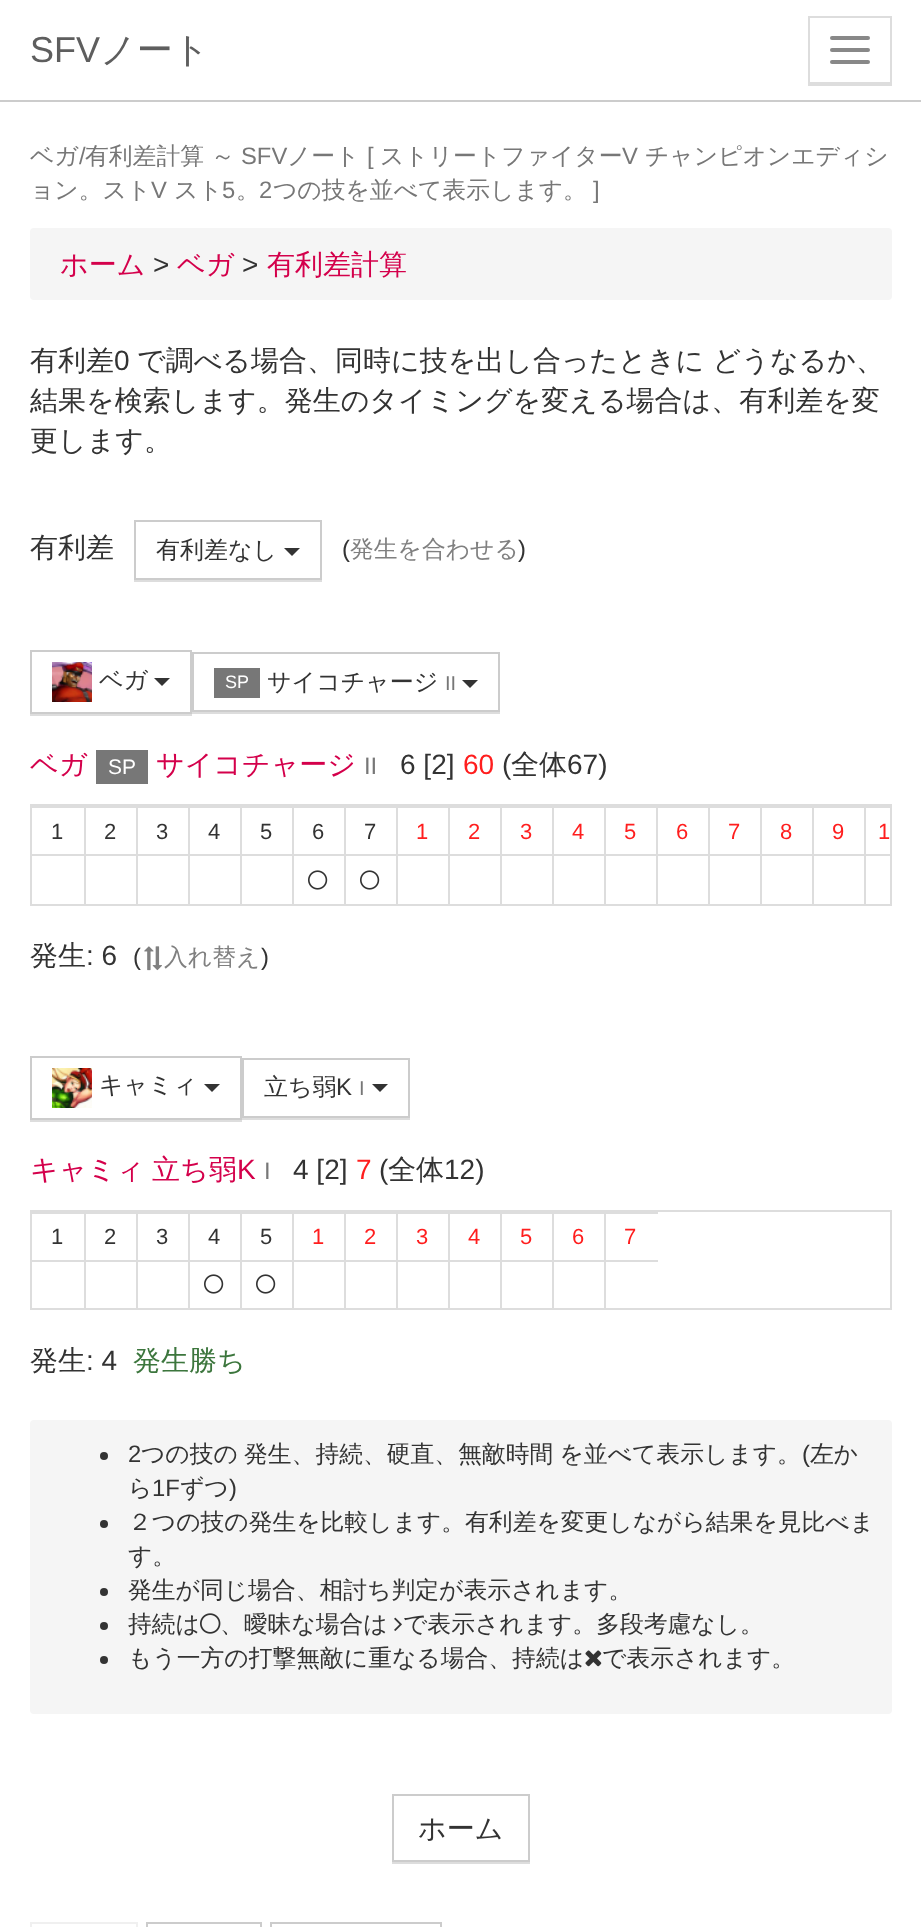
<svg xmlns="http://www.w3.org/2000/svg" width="921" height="1927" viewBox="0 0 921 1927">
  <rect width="100%" height="100%" fill="rgb(255,255,255)"/>
  <rect x="0" y="100" width="921" height="2" fill="rgb(204,204,204)"/>
  <text x="30" y="62" font-family="Liberation Sans" font-size="36" fill="rgb(94,94,94)">SFV</text>
  <text x="100" y="62" font-family="WenQuanYi Zen Hei" font-size="36" font-weight="500" fill="rgb(94,94,94)">ノート</text>
  <rect x="808" y="84" width="84" height="2" fill="rgb(221,221,221)"/>
  <rect x="809" y="17" width="82" height="66" fill="none" stroke="rgb(221,221,221)" stroke-width="2"/>
  <rect x="830" y="36" width="40" height="4" rx="2" fill="rgb(136,136,136)"/>
  <rect x="830" y="48" width="40" height="4" rx="2" fill="rgb(136,136,136)"/>
  <rect x="830" y="60" width="40" height="4" rx="2" fill="rgb(136,136,136)"/>
  <text x="30" y="164" font-family="WenQuanYi Zen Hei" font-size="23.8" font-weight="500" fill="rgb(119,119,119)">ベガ</text>
  <text x="79" y="164" font-family="Liberation Sans" font-size="23.8" fill="rgb(119,119,119)">/</text>
  <g font-family="WenQuanYi Zen Hei" font-size="23.8" font-weight="500" fill="rgb(119,119,119)">
    <text x="85" y="164">有利差計算</text>
    <text x="211" y="164">～</text>
  </g>
  <text x="241" y="164" font-family="Liberation Sans" font-size="23.8" fill="rgb(119,119,119)">SFV</text>
  <text x="287" y="164" font-family="WenQuanYi Zen Hei" font-size="23.8" font-weight="500" fill="rgb(119,119,119)">ノート</text>
  <text x="367" y="164" font-family="Liberation Sans" font-size="23.8" fill="rgb(119,119,119)">[</text>
  <text x="380" y="164" font-family="WenQuanYi Zen Hei" font-size="23.8" font-weight="500" fill="rgb(119,119,119)">ストリートファイター</text>
  <text x="622" y="164" font-family="Liberation Sans" font-size="23.8" fill="rgb(119,119,119)">V</text>
  <g font-family="WenQuanYi Zen Hei" font-size="23.8" font-weight="500" fill="rgb(119,119,119)">
    <text x="645" y="164">チャンピオンエディシ</text>
    <text x="30" y="198">ョン。スト</text>
  </g>
  <text x="151" y="198" font-family="Liberation Sans" font-size="23.8" fill="rgb(119,119,119)">V</text>
  <text x="174" y="198" font-family="WenQuanYi Zen Hei" font-size="23.8" font-weight="500" fill="rgb(119,119,119)">スト</text>
  <text x="222" y="198" font-family="Liberation Sans" font-size="23.8" fill="rgb(119,119,119)">5</text>
  <text x="236" y="198" font-family="WenQuanYi Zen Hei" font-size="23.8" font-weight="500" fill="rgb(119,119,119)">。</text>
  <text x="259" y="198" font-family="Liberation Sans" font-size="23.8" fill="rgb(119,119,119)">2</text>
  <text x="273" y="198" font-family="WenQuanYi Zen Hei" font-size="23.8" font-weight="500" fill="rgb(119,119,119)">つの技を並べて表示します。</text>
  <text x="593" y="198" font-family="Liberation Sans" font-size="23.8" fill="rgb(119,119,119)">]</text>
  <rect x="30" y="228" width="862" height="72" rx="4" fill="rgb(245,245,245)"/>
  <text x="60" y="274" font-family="WenQuanYi Zen Hei" font-size="28" font-weight="500" fill="rgb(212,0,75)">ホーム</text>
  <text x="153" y="274" font-family="Liberation Sans" font-size="28" fill="rgb(51,51,51)">&gt;</text>
  <text x="177" y="274" font-family="WenQuanYi Zen Hei" font-size="28" font-weight="500" fill="rgb(212,0,75)">ベガ</text>
  <text x="242" y="274" font-family="Liberation Sans" font-size="28" fill="rgb(51,51,51)">&gt;</text>
  <text x="267" y="274" font-family="WenQuanYi Zen Hei" font-size="28" font-weight="500" fill="rgb(212,0,75)">有利差計算</text>
  <text x="30" y="370" font-family="WenQuanYi Zen Hei" font-size="28" font-weight="500" fill="rgb(51,51,51)">有利差</text>
  <text x="114" y="370" font-family="Liberation Sans" font-size="28" fill="rgb(51,51,51)">0</text>
  <g font-family="WenQuanYi Zen Hei" font-size="28" font-weight="500" fill="rgb(51,51,51)">
    <text x="137" y="370">で調べる場合、同時に技を出し合ったときに どうなるか、</text>
    <text>
      <tspan x="30" y="410">結果を検索します。発生のタイミングを変える場合は、有利差を変</tspan>
      <tspan x="30" y="450">更します。</tspan>
    </text>
    <text x="30" y="557">有利差</text>
  </g>
  <rect x="134" y="580" width="188" height="2" fill="rgb(221,221,221)"/>
  <rect x="135" y="521" width="186" height="58" fill="none" stroke="rgb(204,204,204)" stroke-width="2"/>
  <text x="156" y="558" font-family="WenQuanYi Zen Hei" font-size="24" font-weight="500" fill="rgb(51,51,51)">有利差なし</text>
  <path d="M284 548H300L292 556Z" fill="rgb(51,51,51)"/>
  <text x="342" y="557" font-family="Liberation Sans" font-size="23.8" fill="rgb(51,51,51)">(</text>
  <text x="350" y="557" font-family="WenQuanYi Zen Hei" font-size="23.8" font-weight="500" fill="rgb(128,128,128)">発生を合わせる</text>
  <text x="518" y="557" font-family="Liberation Sans" font-size="23.8" fill="rgb(51,51,51)">)</text>
  <rect x="30" y="714" width="162" height="2" fill="rgb(221,221,221)"/>
  <rect x="31" y="651" width="160" height="62" fill="none" stroke="rgb(204,204,204)" stroke-width="2"/>
  <image x="52" y="662" width="40" height="40" href="pic1.png"/>
  <text x="99" y="688" font-family="WenQuanYi Zen Hei" font-size="24" font-weight="500" fill="rgb(51,51,51)">ベガ</text>
  <path d="M154 678H170L162 686Z" fill="rgb(51,51,51)"/>
  <rect x="192" y="712" width="308" height="2" fill="rgb(221,221,221)"/>
  <rect x="193" y="653" width="306" height="58" fill="none" stroke="rgb(204,204,204)" stroke-width="2"/>
  <rect x="214" y="668" width="46" height="30" fill="rgb(119,119,119)"/>
  <text x="225" y="688" font-family="Liberation Sans" font-size="18" fill="rgb(255,255,255)">SP</text>
  <text x="267" y="690" font-family="WenQuanYi Zen Hei" font-size="24" font-weight="500" fill="rgb(51,51,51)">サイコチャージ</text>
  <text x="445" y="690" font-family="Liberation Sans" font-size="20" fill="rgb(119,119,119)">II</text>
  <path d="M462 680H478L470 688Z" fill="rgb(51,51,51)"/>
  <text x="30" y="774" font-family="WenQuanYi Zen Hei" font-size="28" font-weight="500" fill="rgb(212,0,75)">ベガ</text>
  <rect x="96" y="750" width="52" height="34" fill="rgb(119,119,119)"/>
  <text x="108" y="774" font-family="Liberation Sans" font-size="21" fill="rgb(255,255,255)">SP</text>
  <text x="156" y="774" font-family="WenQuanYi Zen Hei" font-size="28" font-weight="500" fill="rgb(212,0,75)">サイコチャージ</text>
  <text x="364" y="774" font-family="Liberation Sans" font-size="23.8" fill="rgb(119,119,119)">II</text>
  <text x="400" y="774" font-family="Liberation Sans" font-size="28" fill="rgb(51,51,51)">6 [2]</text>
  <text x="463" y="774" font-family="Liberation Sans" font-size="28" fill="rgb(255,30,30)">60</text>
  <text x="502" y="774" font-family="Liberation Sans" font-size="28" fill="rgb(51,51,51)">(</text>
  <text x="511" y="774" font-family="WenQuanYi Zen Hei" font-size="28" font-weight="500" fill="rgb(51,51,51)">全体</text>
  <text x="567" y="774" font-family="Liberation Sans" font-size="28" fill="rgb(51,51,51)">67)</text>
  <rect x="31" y="805" width="860" height="100" fill="none" stroke="rgb(221,221,221)" stroke-width="2"/>
  <rect x="864" y="806" width="26" height="2" fill="rgb(221,221,221)"/>
  <rect x="864" y="854" width="26" height="2" fill="rgb(221,221,221)"/>
  <rect x="864" y="854" width="2" height="50" fill="rgb(221,221,221)"/>
  <rect x="812" y="854" width="54" height="2" fill="rgb(221,221,221)"/>
  <rect x="864" y="806" width="2" height="50" fill="rgb(221,221,221)"/>
  <rect x="812" y="806" width="54" height="2" fill="rgb(221,221,221)"/>
  <rect x="812" y="854" width="2" height="50" fill="rgb(221,221,221)"/>
  <rect x="760" y="854" width="54" height="2" fill="rgb(221,221,221)"/>
  <rect x="812" y="806" width="2" height="50" fill="rgb(221,221,221)"/>
  <rect x="760" y="806" width="54" height="2" fill="rgb(221,221,221)"/>
  <rect x="760" y="854" width="2" height="50" fill="rgb(221,221,221)"/>
  <rect x="708" y="854" width="54" height="2" fill="rgb(221,221,221)"/>
  <rect x="760" y="806" width="2" height="50" fill="rgb(221,221,221)"/>
  <rect x="708" y="806" width="54" height="2" fill="rgb(221,221,221)"/>
  <rect x="708" y="854" width="2" height="50" fill="rgb(221,221,221)"/>
  <rect x="656" y="854" width="54" height="2" fill="rgb(221,221,221)"/>
  <rect x="708" y="806" width="2" height="50" fill="rgb(221,221,221)"/>
  <rect x="656" y="806" width="54" height="2" fill="rgb(221,221,221)"/>
  <rect x="656" y="854" width="2" height="50" fill="rgb(221,221,221)"/>
  <rect x="604" y="854" width="54" height="2" fill="rgb(221,221,221)"/>
  <rect x="656" y="806" width="2" height="50" fill="rgb(221,221,221)"/>
  <rect x="604" y="806" width="54" height="2" fill="rgb(221,221,221)"/>
  <rect x="604" y="854" width="2" height="50" fill="rgb(221,221,221)"/>
  <rect x="552" y="854" width="54" height="2" fill="rgb(221,221,221)"/>
  <rect x="604" y="806" width="2" height="50" fill="rgb(221,221,221)"/>
  <rect x="552" y="806" width="54" height="2" fill="rgb(221,221,221)"/>
  <rect x="552" y="854" width="2" height="50" fill="rgb(221,221,221)"/>
  <rect x="500" y="854" width="54" height="2" fill="rgb(221,221,221)"/>
  <rect x="552" y="806" width="2" height="50" fill="rgb(221,221,221)"/>
  <rect x="500" y="806" width="54" height="2" fill="rgb(221,221,221)"/>
  <rect x="500" y="854" width="2" height="50" fill="rgb(221,221,221)"/>
  <rect x="448" y="854" width="54" height="2" fill="rgb(221,221,221)"/>
  <rect x="500" y="806" width="2" height="50" fill="rgb(221,221,221)"/>
  <rect x="448" y="806" width="54" height="2" fill="rgb(221,221,221)"/>
  <rect x="448" y="854" width="2" height="50" fill="rgb(221,221,221)"/>
  <rect x="396" y="854" width="54" height="2" fill="rgb(221,221,221)"/>
  <rect x="448" y="806" width="2" height="50" fill="rgb(221,221,221)"/>
  <rect x="396" y="806" width="54" height="2" fill="rgb(221,221,221)"/>
  <rect x="396" y="854" width="2" height="50" fill="rgb(221,221,221)"/>
  <rect x="344" y="854" width="54" height="2" fill="rgb(221,221,221)"/>
  <rect x="396" y="806" width="2" height="50" fill="rgb(221,221,221)"/>
  <rect x="344" y="806" width="54" height="2" fill="rgb(221,221,221)"/>
  <rect x="344" y="854" width="2" height="50" fill="rgb(221,221,221)"/>
  <rect x="292" y="854" width="54" height="2" fill="rgb(221,221,221)"/>
  <rect x="344" y="806" width="2" height="50" fill="rgb(221,221,221)"/>
  <rect x="292" y="806" width="54" height="2" fill="rgb(221,221,221)"/>
  <rect x="292" y="854" width="2" height="50" fill="rgb(221,221,221)"/>
  <rect x="240" y="854" width="54" height="2" fill="rgb(221,221,221)"/>
  <rect x="292" y="806" width="2" height="50" fill="rgb(221,221,221)"/>
  <rect x="240" y="806" width="54" height="2" fill="rgb(221,221,221)"/>
  <rect x="240" y="854" width="2" height="50" fill="rgb(221,221,221)"/>
  <rect x="188" y="854" width="54" height="2" fill="rgb(221,221,221)"/>
  <rect x="240" y="806" width="2" height="50" fill="rgb(221,221,221)"/>
  <rect x="188" y="806" width="54" height="2" fill="rgb(221,221,221)"/>
  <rect x="188" y="854" width="2" height="50" fill="rgb(221,221,221)"/>
  <rect x="136" y="854" width="54" height="2" fill="rgb(221,221,221)"/>
  <rect x="188" y="806" width="2" height="50" fill="rgb(221,221,221)"/>
  <rect x="136" y="806" width="54" height="2" fill="rgb(221,221,221)"/>
  <rect x="136" y="854" width="2" height="50" fill="rgb(221,221,221)"/>
  <rect x="84" y="854" width="54" height="2" fill="rgb(221,221,221)"/>
  <rect x="136" y="806" width="2" height="50" fill="rgb(221,221,221)"/>
  <rect x="84" y="806" width="54" height="2" fill="rgb(221,221,221)"/>
  <rect x="84" y="854" width="2" height="50" fill="rgb(221,221,221)"/>
  <rect x="32" y="854" width="54" height="2" fill="rgb(221,221,221)"/>
  <rect x="84" y="806" width="2" height="50" fill="rgb(221,221,221)"/>
  <rect x="32" y="806" width="54" height="2" fill="rgb(221,221,221)"/>
  <g font-family="Liberation Sans" font-size="22" fill="rgb(51,51,51)">
    <text x="51" y="839">1</text>
    <text x="104" y="839">2</text>
    <text x="156" y="839">3</text>
    <text x="208" y="839">4</text>
    <text x="260" y="839">5</text>
    <text x="312" y="839">6</text>
    <text x="364" y="839">7</text>
  </g>
  <g font-family="Liberation Sans" font-size="22" fill="rgb(255,30,30)">
    <text x="416" y="839">1</text>
    <text x="468" y="839">2</text>
    <text x="520" y="839">3</text>
    <text x="572" y="839">4</text>
    <text x="624" y="839">5</text>
    <text x="676" y="839">6</text>
    <text x="728" y="839">7</text>
    <text x="780" y="839">8</text>
    <text x="832" y="839">9</text>
    <text x="878" y="839">1</text>
  </g>
  <image x="308" y="870" width="20" height="20" href="pic2.png"/>
  <image x="360" y="870" width="20" height="20" href="pic2.png"/>
  <text x="30" y="965" font-family="WenQuanYi Zen Hei" font-size="28" font-weight="500" fill="rgb(51,51,51)">発生</text>
  <text x="86" y="965" font-family="Liberation Sans" font-size="28" fill="rgb(51,51,51)">: 6</text>
  <text x="133" y="965" font-family="Liberation Sans" font-size="23.8" fill="rgb(51,51,51)">(</text>
  <image x="144" y="946" width="18" height="25" href="pic3.png"/>
  <text x="164" y="965" font-family="WenQuanYi Zen Hei" font-size="23.8" font-weight="500" fill="rgb(128,128,128)">入れ替え</text>
  <text x="261" y="965" font-family="Liberation Sans" font-size="23.8" fill="rgb(51,51,51)">)</text>
  <rect x="30" y="1120" width="212" height="2" fill="rgb(221,221,221)"/>
  <rect x="31" y="1057" width="210" height="62" fill="none" stroke="rgb(204,204,204)" stroke-width="2"/>
  <image x="52" y="1068" width="40" height="40" href="pic4.png"/>
  <text x="99" y="1093" font-family="WenQuanYi Zen Hei" font-size="24" font-weight="500" fill="rgb(51,51,51)">キャミィ</text>
  <path d="M204 1084H220L212 1092Z" fill="rgb(51,51,51)"/>
  <rect x="242" y="1118" width="168" height="2" fill="rgb(221,221,221)"/>
  <rect x="243" y="1059" width="166" height="58" fill="none" stroke="rgb(204,204,204)" stroke-width="2"/>
  <text x="264" y="1095" font-family="WenQuanYi Zen Hei" font-size="24" font-weight="500" fill="rgb(51,51,51)">立ち弱</text>
  <text x="336" y="1095" font-family="Liberation Sans" font-size="24" fill="rgb(51,51,51)">K</text>
  <text x="359" y="1095" font-family="Liberation Sans" font-size="20" fill="rgb(119,119,119)">I</text>
  <path d="M372 1084H388L380 1092Z" fill="rgb(51,51,51)"/>
  <g font-family="WenQuanYi Zen Hei" font-size="28" font-weight="500" fill="rgb(212,0,75)">
    <text x="30" y="1179">キャミィ</text>
    <text x="152" y="1179">立ち弱</text>
  </g>
  <text x="237" y="1179" font-family="Liberation Sans" font-size="28" fill="rgb(212,0,75)">K</text>
  <text x="264" y="1179" font-family="Liberation Sans" font-size="23.8" fill="rgb(119,119,119)">I</text>
  <text x="293" y="1179" font-family="Liberation Sans" font-size="28" fill="rgb(51,51,51)">4 [2]</text>
  <text x="356" y="1179" font-family="Liberation Sans" font-size="28" fill="rgb(255,30,30)">7</text>
  <text x="379" y="1179" font-family="Liberation Sans" font-size="28" fill="rgb(51,51,51)">(</text>
  <text x="388" y="1179" font-family="WenQuanYi Zen Hei" font-size="28" font-weight="500" fill="rgb(51,51,51)">全体</text>
  <text x="444" y="1179" font-family="Liberation Sans" font-size="28" fill="rgb(51,51,51)">12)</text>
  <rect x="31" y="1211" width="860" height="98" fill="none" stroke="rgb(221,221,221)" stroke-width="2"/>
  <rect x="604" y="1212" width="54" height="2" fill="rgb(221,221,221)"/>
  <rect x="604" y="1260" width="54" height="2" fill="rgb(221,221,221)"/>
  <rect x="604" y="1260" width="2" height="48" fill="rgb(221,221,221)"/>
  <rect x="552" y="1260" width="54" height="2" fill="rgb(221,221,221)"/>
  <rect x="604" y="1212" width="2" height="50" fill="rgb(221,221,221)"/>
  <rect x="552" y="1212" width="54" height="2" fill="rgb(221,221,221)"/>
  <rect x="552" y="1260" width="2" height="48" fill="rgb(221,221,221)"/>
  <rect x="500" y="1260" width="54" height="2" fill="rgb(221,221,221)"/>
  <rect x="552" y="1212" width="2" height="50" fill="rgb(221,221,221)"/>
  <rect x="500" y="1212" width="54" height="2" fill="rgb(221,221,221)"/>
  <rect x="500" y="1260" width="2" height="48" fill="rgb(221,221,221)"/>
  <rect x="448" y="1260" width="54" height="2" fill="rgb(221,221,221)"/>
  <rect x="500" y="1212" width="2" height="50" fill="rgb(221,221,221)"/>
  <rect x="448" y="1212" width="54" height="2" fill="rgb(221,221,221)"/>
  <rect x="448" y="1260" width="2" height="48" fill="rgb(221,221,221)"/>
  <rect x="396" y="1260" width="54" height="2" fill="rgb(221,221,221)"/>
  <rect x="448" y="1212" width="2" height="50" fill="rgb(221,221,221)"/>
  <rect x="396" y="1212" width="54" height="2" fill="rgb(221,221,221)"/>
  <rect x="396" y="1260" width="2" height="48" fill="rgb(221,221,221)"/>
  <rect x="344" y="1260" width="54" height="2" fill="rgb(221,221,221)"/>
  <rect x="396" y="1212" width="2" height="50" fill="rgb(221,221,221)"/>
  <rect x="344" y="1212" width="54" height="2" fill="rgb(221,221,221)"/>
  <rect x="344" y="1260" width="2" height="48" fill="rgb(221,221,221)"/>
  <rect x="292" y="1260" width="54" height="2" fill="rgb(221,221,221)"/>
  <rect x="344" y="1212" width="2" height="50" fill="rgb(221,221,221)"/>
  <rect x="292" y="1212" width="54" height="2" fill="rgb(221,221,221)"/>
  <rect x="292" y="1260" width="2" height="48" fill="rgb(221,221,221)"/>
  <rect x="240" y="1260" width="54" height="2" fill="rgb(221,221,221)"/>
  <rect x="292" y="1212" width="2" height="50" fill="rgb(221,221,221)"/>
  <rect x="240" y="1212" width="54" height="2" fill="rgb(221,221,221)"/>
  <rect x="240" y="1260" width="2" height="48" fill="rgb(221,221,221)"/>
  <rect x="188" y="1260" width="54" height="2" fill="rgb(221,221,221)"/>
  <rect x="240" y="1212" width="2" height="50" fill="rgb(221,221,221)"/>
  <rect x="188" y="1212" width="54" height="2" fill="rgb(221,221,221)"/>
  <rect x="188" y="1260" width="2" height="48" fill="rgb(221,221,221)"/>
  <rect x="136" y="1260" width="54" height="2" fill="rgb(221,221,221)"/>
  <rect x="188" y="1212" width="2" height="50" fill="rgb(221,221,221)"/>
  <rect x="136" y="1212" width="54" height="2" fill="rgb(221,221,221)"/>
  <rect x="136" y="1260" width="2" height="48" fill="rgb(221,221,221)"/>
  <rect x="84" y="1260" width="54" height="2" fill="rgb(221,221,221)"/>
  <rect x="136" y="1212" width="2" height="50" fill="rgb(221,221,221)"/>
  <rect x="84" y="1212" width="54" height="2" fill="rgb(221,221,221)"/>
  <rect x="84" y="1260" width="2" height="48" fill="rgb(221,221,221)"/>
  <rect x="32" y="1260" width="54" height="2" fill="rgb(221,221,221)"/>
  <rect x="84" y="1212" width="2" height="50" fill="rgb(221,221,221)"/>
  <rect x="32" y="1212" width="54" height="2" fill="rgb(221,221,221)"/>
  <g font-family="Liberation Sans" font-size="22" fill="rgb(51,51,51)">
    <text x="51" y="1244">1</text>
    <text x="104" y="1244">2</text>
    <text x="156" y="1244">3</text>
    <text x="208" y="1244">4</text>
    <text x="260" y="1244">5</text>
  </g>
  <g font-family="Liberation Sans" font-size="22" fill="rgb(255,30,30)">
    <text x="312" y="1244">1</text>
    <text x="364" y="1244">2</text>
    <text x="416" y="1244">3</text>
    <text x="468" y="1244">4</text>
    <text x="520" y="1244">5</text>
    <text x="572" y="1244">6</text>
    <text x="624" y="1244">7</text>
  </g>
  <image x="204" y="1274" width="20" height="20" href="pic2.png"/>
  <image x="256" y="1274" width="20" height="20" href="pic2.png"/>
  <text x="30" y="1370" font-family="WenQuanYi Zen Hei" font-size="28" font-weight="500" fill="rgb(51,51,51)">発生</text>
  <text x="86" y="1370" font-family="Liberation Sans" font-size="28" fill="rgb(51,51,51)">: 4</text>
  <text x="133" y="1370" font-family="WenQuanYi Zen Hei" font-size="28" font-weight="500" fill="rgb(60,118,61)">発生勝ち</text>
  <rect x="30" y="1420" width="862" height="294" rx="4" fill="rgb(245,245,245)"/>
  <circle cx="104" cy="1456" r="4" fill="rgb(51,51,51)"/>
  <text x="128" y="1462" font-family="Liberation Sans" font-size="23.8" fill="rgb(51,51,51)">2</text>
  <text x="141" y="1462" word-spacing="-1" font-family="WenQuanYi Zen Hei" font-size="23.8" font-weight="500" fill="rgb(51,51,51)">つの技の 発生、持続、硬直、無敵時間 を並べて表示します。</text>
  <text x="802" y="1462" font-family="Liberation Sans" font-size="23.8" fill="rgb(51,51,51)">(</text>
  <g font-family="WenQuanYi Zen Hei" font-size="23.8" font-weight="500" fill="rgb(51,51,51)">
    <text x="810" y="1462">左か</text>
    <text x="128" y="1496">ら</text>
  </g>
  <text x="152" y="1496" font-family="Liberation Sans" font-size="23.8" fill="rgb(51,51,51)">1F</text>
  <text x="180" y="1496" font-family="WenQuanYi Zen Hei" font-size="23.8" font-weight="500" fill="rgb(51,51,51)">ずつ</text>
  <text x="229" y="1496" font-family="Liberation Sans" font-size="23.8" fill="rgb(51,51,51)">)</text>
  <circle cx="104" cy="1524" r="4" fill="rgb(51,51,51)"/>
  <g font-family="WenQuanYi Zen Hei" font-size="23.8" font-weight="500" fill="rgb(51,51,51)">
    <text>
      <tspan x="128" y="1530">２つの技の発生を比較します。有利差を変更しながら結果を見比べま</tspan>
      <tspan x="128" y="1564">す。</tspan>
    </text>
  </g>
  <circle cx="104" cy="1592" r="4" fill="rgb(51,51,51)"/>
  <text x="128" y="1598" font-family="WenQuanYi Zen Hei" font-size="23.8" font-weight="500" fill="rgb(51,51,51)">発生が同じ場合、相討ち判定が表示されます。</text>
  <circle cx="104" cy="1626" r="4" fill="rgb(51,51,51)"/>
  <text x="128" y="1632" font-family="WenQuanYi Zen Hei" font-size="23.8" font-weight="500" fill="rgb(51,51,51)">持続は</text>
  <image x="200" y="1613" width="21" height="21" href="pic5.png"/>
  <text x="220" y="1632" font-family="WenQuanYi Zen Hei" font-size="23.8" font-weight="500" fill="rgb(51,51,51)">、曖昧な場合は</text>
  <image x="394" y="1617" width="8" height="14" href="pic6.png"/>
  <text x="403" y="1632" font-family="WenQuanYi Zen Hei" font-size="23.8" font-weight="500" fill="rgb(51,51,51)">で表示されます。多段考慮なし。</text>
  <circle cx="104" cy="1660" r="4" fill="rgb(51,51,51)"/>
  <text x="128" y="1666" font-family="WenQuanYi Zen Hei" font-size="23.8" font-weight="500" fill="rgb(51,51,51)">もう一方の打撃無敵に重なる場合、持続は</text>
  <image x="585" y="1650" width="17" height="17" href="pic7.png"/>
  <text x="602" y="1666" font-family="WenQuanYi Zen Hei" font-size="23.8" font-weight="500" fill="rgb(51,51,51)">で表示されます。</text>
  <rect x="392" y="1862" width="138" height="2" fill="rgb(221,221,221)"/>
  <rect x="393" y="1795" width="136" height="66" fill="none" stroke="rgb(204,204,204)" stroke-width="2"/>
  <text x="418" y="1838" font-family="WenQuanYi Zen Hei" font-size="28" font-weight="500" fill="rgb(51,51,51)">ホーム</text>
  <rect x="31" y="1923" width="106" height="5" fill="none" stroke="rgb(240,240,240)" stroke-width="2"/>
  <rect x="147" y="1923" width="114" height="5" fill="none" stroke="rgb(204,204,204)" stroke-width="2"/>
  <rect x="271" y="1923" width="170" height="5" fill="none" stroke="rgb(204,204,204)" stroke-width="2"/>
</svg>
